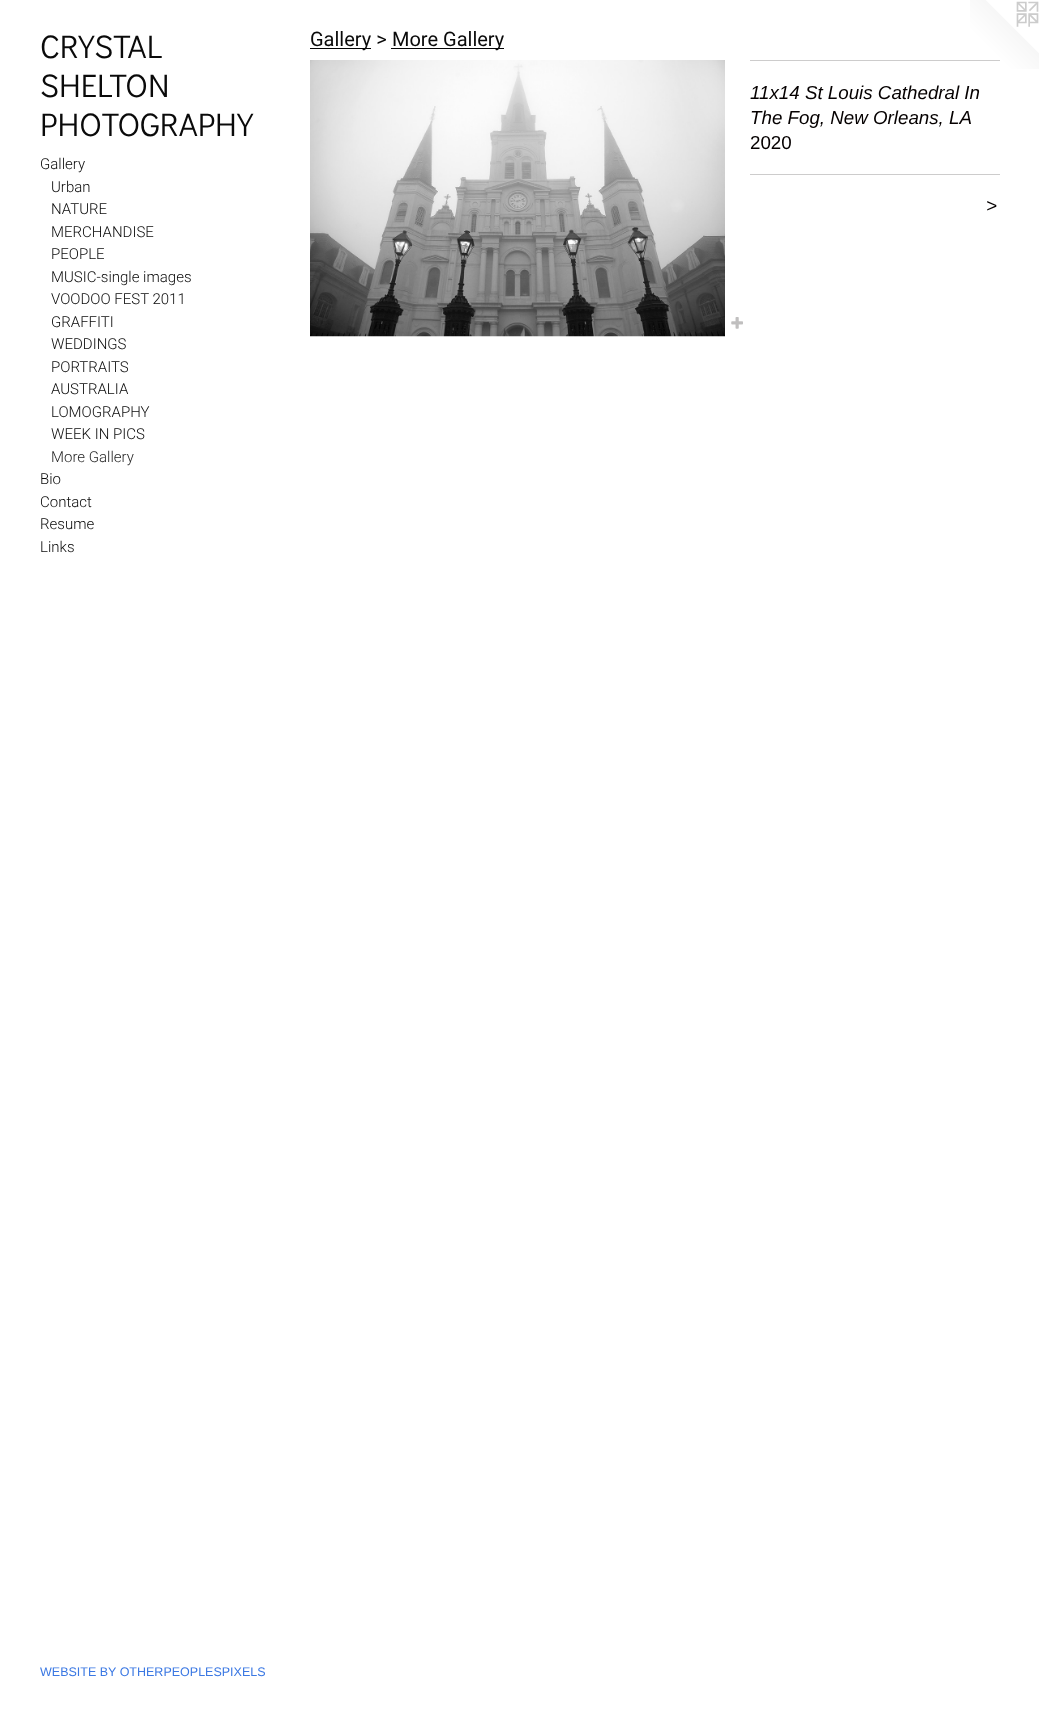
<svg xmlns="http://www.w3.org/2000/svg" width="1039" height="1710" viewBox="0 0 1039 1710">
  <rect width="100%" height="100%" fill="rgb(255,255,255)"/>
  <g font-family="Didact Gothic" font-size="32.5" fill="rgb(10,10,10)">
    <text>
      <tspan x="40" y="58">CRYSTAL</tspan>
      <tspan x="40" y="97">SHELTON</tspan>
      <tspan x="40" y="136">PHOTOGRAPHY</tspan>
    </text>
  </g>
  <g font-family="Roboto" font-size="15" font-weight="300" fill="rgb(10,10,10)">
    <text x="40" y="169">Gallery</text>
    <text>
      <tspan x="51" y="192">Urban</tspan>
      <tspan x="51" y="214">NATURE</tspan>
      <tspan x="51" y="237">MERCHANDISE</tspan>
      <tspan x="51" y="259">PEOPLE</tspan>
      <tspan x="51" y="282">MUSIC-single images</tspan>
      <tspan x="51" y="304">VOODOO FEST 2011</tspan>
      <tspan x="51" y="327">GRAFFITI</tspan>
      <tspan x="51" y="349">WEDDINGS</tspan>
      <tspan x="51" y="372">PORTRAITS</tspan>
      <tspan x="51" y="394">AUSTRALIA</tspan>
      <tspan x="51" y="417">LOMOGRAPHY</tspan>
      <tspan x="51" y="439">WEEK IN PICS</tspan>
    </text>
  </g>
  <text x="51" y="462" font-family="Roboto" font-size="15" font-weight="300" fill="rgb(31,31,31)">More Gallery</text>
  <g font-family="Roboto" font-size="15" font-weight="300" fill="rgb(10,10,10)">
    <text>
      <tspan x="40" y="484">Bio</tspan>
      <tspan x="40" y="507">Contact</tspan>
      <tspan x="40" y="529">Resume</tspan>
      <tspan x="40" y="552">Links</tspan>
    </text>
  </g>
  <text x="40" y="1676" font-family="Liberation Sans" font-size="12.5" fill="rgb(59,120,227)">WEBSITE BY OTHERPEOPLESPIXELS</text>
  <rect x="310" y="48" width="61" height="1" fill="rgb(5,5,5)"/>
  <text x="310" y="46" font-family="Roboto" font-size="20" fill="rgb(10,10,10)">Gallery &gt;</text>
  <rect x="391" y="48" width="113" height="1" fill="rgb(5,5,5)"/>
  <text x="392" y="46" font-family="Roboto" font-size="20" fill="rgb(10,10,10)">More Gallery</text>
  <image x="310" y="60" width="415" height="277" href="pic1.png"/>
  <image x="731" y="317" width="12" height="12" href="pic2.png"/>
  <image x="970" y="0" width="69" height="69" href="pic3.png"/>
  <rect x="750" y="60" width="250" height="1" fill="rgb(205,204,204)"/>
  <g font-family="Liberation Sans" font-size="18.75" font-style="italic" fill="rgb(5,0,0)">
    <text>
      <tspan x="750" y="99">11x14 St Louis Cathedral In</tspan>
      <tspan x="750" y="124">The Fog, New Orleans, LA</tspan>
    </text>
  </g>
  <text x="750" y="149" font-family="Liberation Sans" font-size="18.75" fill="rgb(5,0,0)">2020</text>
  <rect x="750" y="174" width="250" height="1" fill="rgb(205,204,204)"/>
  <text x="986" y="212" font-family="Liberation Sans" font-size="18.75" font-style="italic" letter-spacing="1" fill="rgb(5,0,0)">&gt;</text>
</svg>
